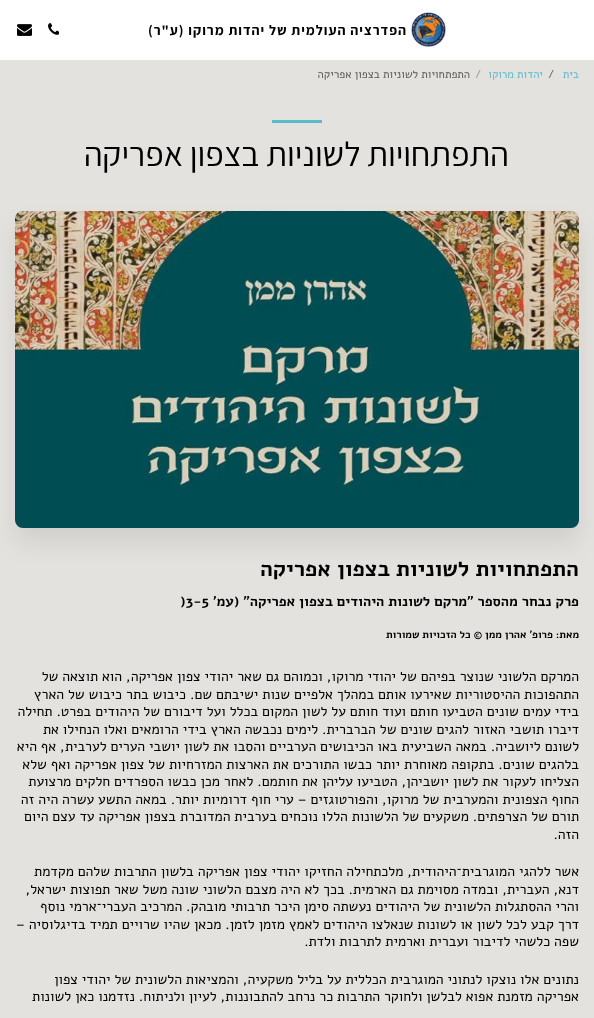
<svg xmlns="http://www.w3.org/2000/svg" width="594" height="1018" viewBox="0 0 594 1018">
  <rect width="100%" height="100%" fill="rgb(227,226,222)"/>
  <rect x="0" y="0" width="594" height="60" fill="rgb(255,255,255)"/>
  <image x="411" y="12" width="35" height="35" href="pic1.png"/>
  <text x="407" y="35" font-family="Assistant" font-size="14" font-weight="bold" letter-spacing="1" direction="rtl" fill="rgb(0,0,0)">הפדרציה העולמית של יהדות מרוקו (ע"ר)</text>
  <image x="48" y="23" width="11" height="12" href="pic2.png"/>
  <image x="17" y="24" width="15" height="12" href="pic3.png"/>
  <text x="579" y="78" font-family="Alef" font-size="11.25" direction="rtl" fill="rgb(85,189,202)">בית</text>
  <text x="548" y="78" font-family="Alef" font-size="11.25" fill="rgb(91,90,89)">/</text>
  <text x="543" y="78" font-family="Alef" font-size="11.25" direction="rtl" fill="rgb(85,189,202)">יהדות מרוקו</text>
  <text x="475" y="78" font-family="Alef" font-size="11.25" fill="rgb(145,145,142)">/</text>
  <text x="470" y="78" font-family="Alef" font-size="11.25" direction="rtl" fill="rgb(91,90,89)">התפתחויות לשוניות בצפון אפריקה</text>
  <rect x="272" y="120" width="50" height="3" fill="rgb(85,189,202)"/>
  <text x="509" y="166" font-family="Assistant" font-size="34.25" direction="rtl" fill="rgb(0,0,0)">התפתחויות לשוניות בצפון אפריקה</text>
  <rect x="15" y="226" width="564" height="317" rx="8" fill="rgba(0,0,0,0.08)" filter="blur(12.5px)"/>
  <image x="15" y="211" width="564" height="317" href="pic4.png"/>
  <text x="579" y="576" font-family="Alef" font-size="21.9" font-weight="bold" direction="rtl" fill="rgb(0,0,0)">התפתחויות לשוניות בצפון אפריקה</text>
  <text x="579" y="606" font-family="Alef" font-size="14" font-weight="bold" direction="rtl" fill="rgb(0,0,0)">פרק נבחר מהספר "מרקם לשונות היהודים בצפון אפריקה" (עמ'</text>
  <text x="180" y="606" font-family="Alef" font-size="14" font-weight="bold" fill="rgb(0,0,0)">)3-5</text>
  <text x="579" y="638" font-family="Alef" font-size="10.5" font-weight="bold" direction="rtl" fill="rgb(0,0,0)">מאת: פרופ' אהרן ממן © כל הזכויות שמורות</text>
  <g font-family="Alef" font-size="14" direction="rtl" fill="rgb(0,0,0)">
    <text>
      <tspan x="579" y="681">המרקם הלשוני שנוצר בפיהם של יהודי מרוקו, וכמוהם גם שאר יהודי צפון אפריקה, הוא תוצאה של</tspan>
      <tspan x="579" y="699">התהפוכות ההיסטוריות שאירעו אותם במהלך אלפיים שנות ישיבתם שם. כיבוש בתר כיבוש של הארץ</tspan>
      <tspan x="579" y="716">בידי עמים שונים הטביעו חותם ועוד חותם על לשון המקום בכלל ועל דיבורם של היהודים בפרט. תחילה</tspan>
      <tspan x="579" y="734">דיברו תושבי האזור להגים שונים של הברברית. לימים נכבשה הארץ בידי הרומאים ואלו הנחילו את</tspan>
      <tspan x="579" y="751">לשונם ליושביה. במאה השביעית באו הכיבושים הערביים והסבו את לשון יושבי הערים לערבית, אף היא</tspan>
      <tspan x="579" y="769">בלהגים שונים. בתקופה מאוחרת יותר כבשו התורכים את הארצות המזרחיות של צפון אפריקה ואף שלא</tspan>
      <tspan x="579" y="786">הצליחו לעקור את לשון יושביהן, הטביעו עליהן את חותמם. לאחר מכן כבשו הספרדים חלקים מרצועת</tspan>
      <tspan x="579" y="804">החוף הצפונית והמערבית של מרוקו, והפורטוגזים – ערי חוף דרומיות יותר. במאה התשע עשרה היה זה</tspan>
      <tspan x="579" y="821">תורם של הצרפתים. משקעים של הלשונות הללו נוכחים בערבית המדוברת בצפון אפריקה עד עצם היום</tspan>
      <tspan x="579" y="839">הזה.</tspan>
    </text>
    <text>
      <tspan x="579" y="876">אשר ללהגי המוגרבית־היהודית, מלכתחילה החזיקו יהודי צפון אפריקה בלשון התרבות שלהם מקדמת</tspan>
      <tspan x="579" y="894">דנא, העברית, ובמדה מסוימת גם הארמית. בכך לא היה מצבם הלשוני שונה משל שאר תפוצות ישראל,</tspan>
      <tspan x="579" y="911">והרי ההסתגלות הלשונית של היהודים נעשתה סימן היכר תרבותי מובהק. המרכיב העברי־ארמי נוסף</tspan>
      <tspan x="579" y="929">דרך קבע לכל לשון או לשונות שנאלצו היהודים לאמץ מזמן לזמן. מכאן שהיו שרויים תמיד בדיגלוסיה –</tspan>
      <tspan x="579" y="946">שפה כלשהי לדיבור ועברית וארמית לתרבות ולדת.</tspan>
    </text>
    <text>
      <tspan x="579" y="984">נתונים אלו נוצקו לנתוני המוגרבית הכללית על בליל משקעיה, והמציאות הלשונית של יהודי צפון</tspan>
      <tspan x="579" y="1001">אפריקה מזמנת אפוא לבלשן ולחוקר התרבות כר נרחב להתבוננות, לעיון ולניתוח. נזדמנו כאן לשונות</tspan>
    </text>
  </g>
</svg>
